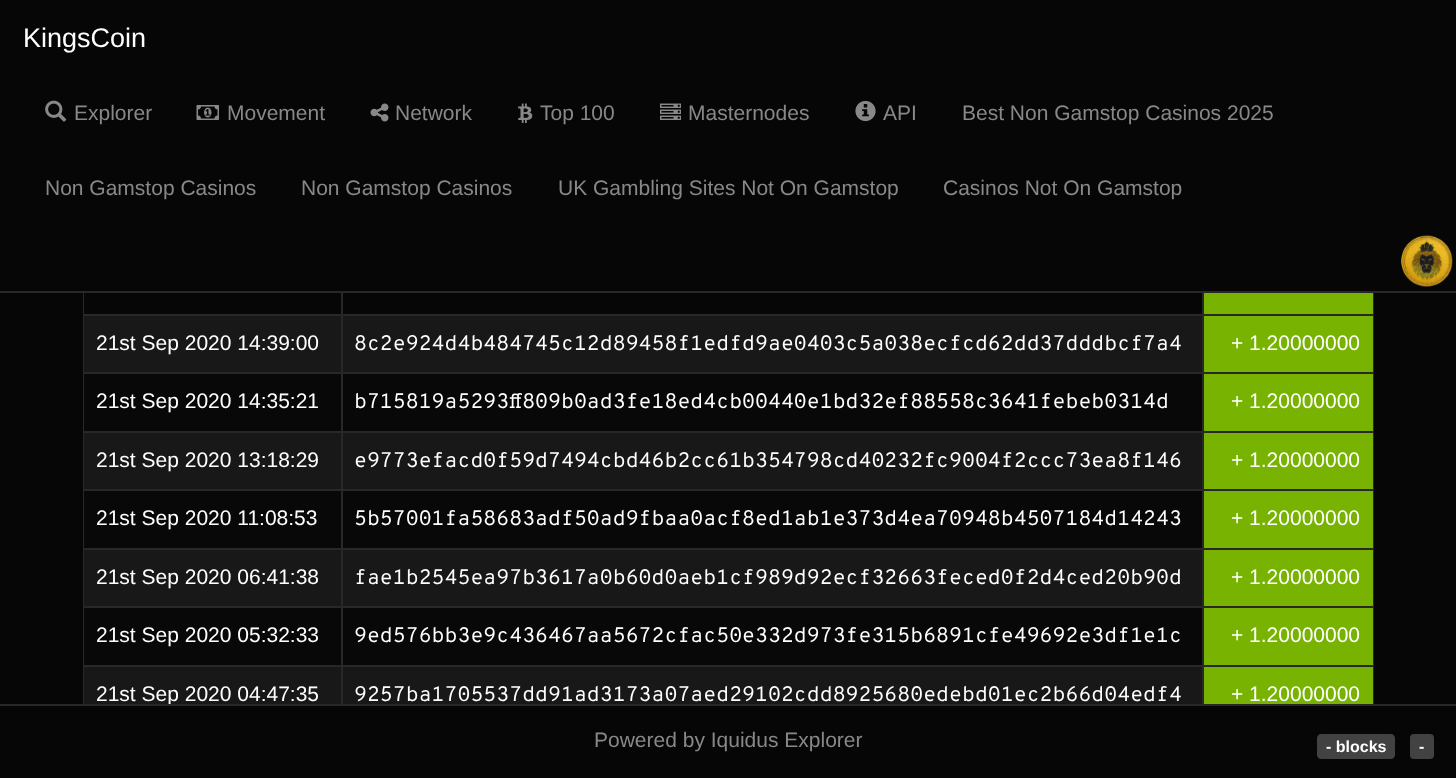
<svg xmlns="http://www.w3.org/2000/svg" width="1456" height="778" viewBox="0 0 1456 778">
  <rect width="100%" height="100%" fill="rgb(6,6,6)"/>
  <rect x="84" y="-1" width="1289" height="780" fill="none" stroke="rgb(40,40,40)" stroke-width="2"/>
  <rect x="83" y="0" width="1291" height="291" fill="rgb(6,6,6)"/>
  <rect x="0" y="291" width="1456" height="2" fill="rgb(40,40,40)"/>
  <text x="23" y="47" font-family="Liberation Sans" font-size="27" fill="rgb(255,255,255)">KingsCoin</text>
  <image x="45" y="100" width="22" height="22" href="pic1.png"/>
  <text x="74" y="120" font-family="Liberation Sans" font-size="21" fill="rgb(136,136,136)">Explorer</text>
  <image x="196" y="105" width="23" height="15" href="pic2.png"/>
  <text x="227" y="120" font-family="Liberation Sans" font-size="21" fill="rgb(136,136,136)">Movement</text>
  <image x="370" y="103" width="19" height="19" href="pic3.png"/>
  <text x="395" y="120" font-family="Liberation Sans" font-size="21" fill="rgb(136,136,136)">Network</text>
  <image x="518" y="103" width="15" height="20" href="pic4.png"/>
  <text x="540" y="120" font-family="Liberation Sans" font-size="21" fill="rgb(136,136,136)">Top 100</text>
  <image x="660" y="103" width="21" height="17" href="pic5.png"/>
  <text x="688" y="120" font-family="Liberation Sans" font-size="21" fill="rgb(136,136,136)">Masternodes</text>
  <image x="855" y="100" width="21" height="22" href="pic6.png"/>
  <g font-family="Liberation Sans" font-size="21" fill="rgb(136,136,136)">
    <text x="883" y="120">API</text>
    <text x="962" y="120">Best Non Gamstop Casinos 2025</text>
    <text x="45" y="195">Non Gamstop Casinos</text>
    <text x="301" y="195">Non Gamstop Casinos</text>
    <text x="558" y="195">UK Gambling Sites Not On Gamstop</text>
    <text x="943" y="195">Casinos Not On Gamstop</text>
  </g>
  <image x="1401" y="235" width="52" height="52" href="pic7.png"/>
  <rect x="84" y="316" width="1118" height="388" fill="rgb(24,24,24)"/>
  <rect x="84" y="293" width="1" height="21" fill="rgb(8,8,8)"/>
  <rect x="1204" y="293" width="169" height="21" fill="rgb(119,179,0)"/>
  <rect x="84" y="314" width="1290" height="2" fill="rgb(40,40,40)"/>
  <rect x="84" y="374" width="1118" height="57" fill="rgb(8,8,8)"/>
  <rect x="84" y="372" width="1290" height="2" fill="rgb(40,40,40)"/>
  <rect x="84" y="431" width="1290" height="2" fill="rgb(40,40,40)"/>
  <rect x="84" y="491" width="1118" height="57" fill="rgb(8,8,8)"/>
  <rect x="84" y="489" width="1290" height="2" fill="rgb(40,40,40)"/>
  <rect x="84" y="548" width="1290" height="2" fill="rgb(40,40,40)"/>
  <rect x="84" y="608" width="1118" height="57" fill="rgb(8,8,8)"/>
  <rect x="84" y="606" width="1290" height="2" fill="rgb(40,40,40)"/>
  <rect x="84" y="665" width="1290" height="2" fill="rgb(40,40,40)"/>
  <rect x="341" y="665" width="2" height="39" fill="rgb(40,40,40)"/>
  <rect x="341" y="606" width="2" height="60" fill="rgb(40,40,40)"/>
  <rect x="341" y="548" width="2" height="60" fill="rgb(40,40,40)"/>
  <rect x="341" y="489" width="2" height="60" fill="rgb(40,40,40)"/>
  <rect x="341" y="431" width="2" height="60" fill="rgb(40,40,40)"/>
  <rect x="341" y="372" width="2" height="60" fill="rgb(40,40,40)"/>
  <rect x="341" y="293" width="2" height="81" fill="rgb(40,40,40)"/>
  <text x="96" y="350" font-family="Liberation Sans" font-size="21" fill="rgb(255,255,255)">21st Sep 2020 14:39:00</text>
  <rect x="1202" y="665" width="2" height="39" fill="rgb(40,40,40)"/>
  <rect x="1202" y="606" width="2" height="60" fill="rgb(40,40,40)"/>
  <rect x="1202" y="548" width="2" height="60" fill="rgb(40,40,40)"/>
  <rect x="1202" y="489" width="2" height="60" fill="rgb(40,40,40)"/>
  <rect x="1202" y="431" width="2" height="60" fill="rgb(40,40,40)"/>
  <rect x="1202" y="372" width="2" height="60" fill="rgb(40,40,40)"/>
  <rect x="1202" y="293" width="2" height="81" fill="rgb(40,40,40)"/>
  <text x="354" y="350" font-family="Overpass Mono" font-size="21" fill="rgb(255,255,255)">8c2e924d4b484745c12d89458f1edfd9ae0403c5a038ecfcd62dd37dddbcf7a4</text>
  <rect x="1204" y="316" width="169" height="56" fill="rgb(119,179,0)"/>
  <g font-family="Liberation Sans" font-size="21" fill="rgb(255,255,255)">
    <text x="1231" y="350">+ 1.20000000</text>
    <text x="96" y="408">21st Sep 2020 14:35:21</text>
  </g>
  <text x="354" y="408" font-family="Overpass Mono" font-size="21" fill="rgb(255,255,255)">b715819a5293ff809b0ad3fe18ed4cb00440e1bd32ef88558c3641febeb0314d</text>
  <rect x="1204" y="374" width="169" height="57" fill="rgb(119,179,0)"/>
  <g font-family="Liberation Sans" font-size="21" fill="rgb(255,255,255)">
    <text x="1231" y="408">+ 1.20000000</text>
    <text x="96" y="467">21st Sep 2020 13:18:29</text>
  </g>
  <text x="354" y="467" font-family="Overpass Mono" font-size="21" fill="rgb(255,255,255)">e9773efacd0f59d7494cbd46b2cc61b354798cd40232fc9004f2ccc73ea8f146</text>
  <rect x="1204" y="433" width="169" height="56" fill="rgb(119,179,0)"/>
  <g font-family="Liberation Sans" font-size="21" fill="rgb(255,255,255)">
    <text x="1231" y="467">+ 1.20000000</text>
    <text x="96" y="525">21st Sep 2020 11:08:53</text>
  </g>
  <text x="354" y="525" font-family="Overpass Mono" font-size="21" fill="rgb(255,255,255)">5b57001fa58683adf50ad9fbaa0acf8ed1ab1e373d4ea70948b4507184d14243</text>
  <rect x="1204" y="491" width="169" height="57" fill="rgb(119,179,0)"/>
  <g font-family="Liberation Sans" font-size="21" fill="rgb(255,255,255)">
    <text x="1231" y="525">+ 1.20000000</text>
    <text x="96" y="584">21st Sep 2020 06:41:38</text>
  </g>
  <text x="354" y="584" font-family="Overpass Mono" font-size="21" fill="rgb(255,255,255)">fae1b2545ea97b3617a0b60d0aeb1cf989d92ecf32663feced0f2d4ced20b90d</text>
  <rect x="1204" y="550" width="169" height="56" fill="rgb(119,179,0)"/>
  <g font-family="Liberation Sans" font-size="21" fill="rgb(255,255,255)">
    <text x="1231" y="584">+ 1.20000000</text>
    <text x="96" y="642">21st Sep 2020 05:32:33</text>
  </g>
  <text x="354" y="642" font-family="Overpass Mono" font-size="21" fill="rgb(255,255,255)">9ed576bb3e9c436467aa5672cfac50e332d973fe315b6891cfe49692e3df1e1c</text>
  <rect x="1204" y="608" width="169" height="57" fill="rgb(119,179,0)"/>
  <g font-family="Liberation Sans" font-size="21" fill="rgb(255,255,255)">
    <text x="1231" y="642">+ 1.20000000</text>
    <text x="96" y="701">21st Sep 2020 04:47:35</text>
  </g>
  <text x="354" y="701" font-family="Overpass Mono" font-size="21" fill="rgb(255,255,255)">9257ba1705537dd91ad3173a07aed29102cdd8925680edebd01ec2b66d04edf4</text>
  <rect x="1204" y="667" width="169" height="37" fill="rgb(119,179,0)"/>
  <text x="1231" y="701" font-family="Liberation Sans" font-size="21" fill="rgb(255,255,255)">+ 1.20000000</text>
  <rect x="83" y="706" width="1291" height="72" fill="rgb(6,6,6)"/>
  <rect x="0" y="704" width="1456" height="2" fill="rgb(40,40,40)"/>
  <text x="594" y="747" font-family="Liberation Sans" font-size="21" fill="rgb(136,136,136)">Powered by Iquidus Explorer</text>
  <path d="M1321 734H1331V759H1321C1319 759 1317 757 1317 755V738C1317 736 1319 734 1321 734Z" fill="rgb(66,66,66)"/>
  <path d="M1331 734H1391C1393 734 1395 736 1395 738V755C1395 757 1393 759 1391 759H1331Z" fill="rgb(66,66,66)"/>
  <text x="1326" y="752" font-family="Liberation Sans" font-size="16" font-weight="bold" fill="rgb(255,255,255)">- blocks</text>
  <rect x="1410" y="734" width="24" height="25" rx="4" fill="rgb(66,66,66)"/>
  <text x="1419" y="752" font-family="Liberation Sans" font-size="16" font-weight="bold" fill="rgb(255,255,255)">-</text>
</svg>
